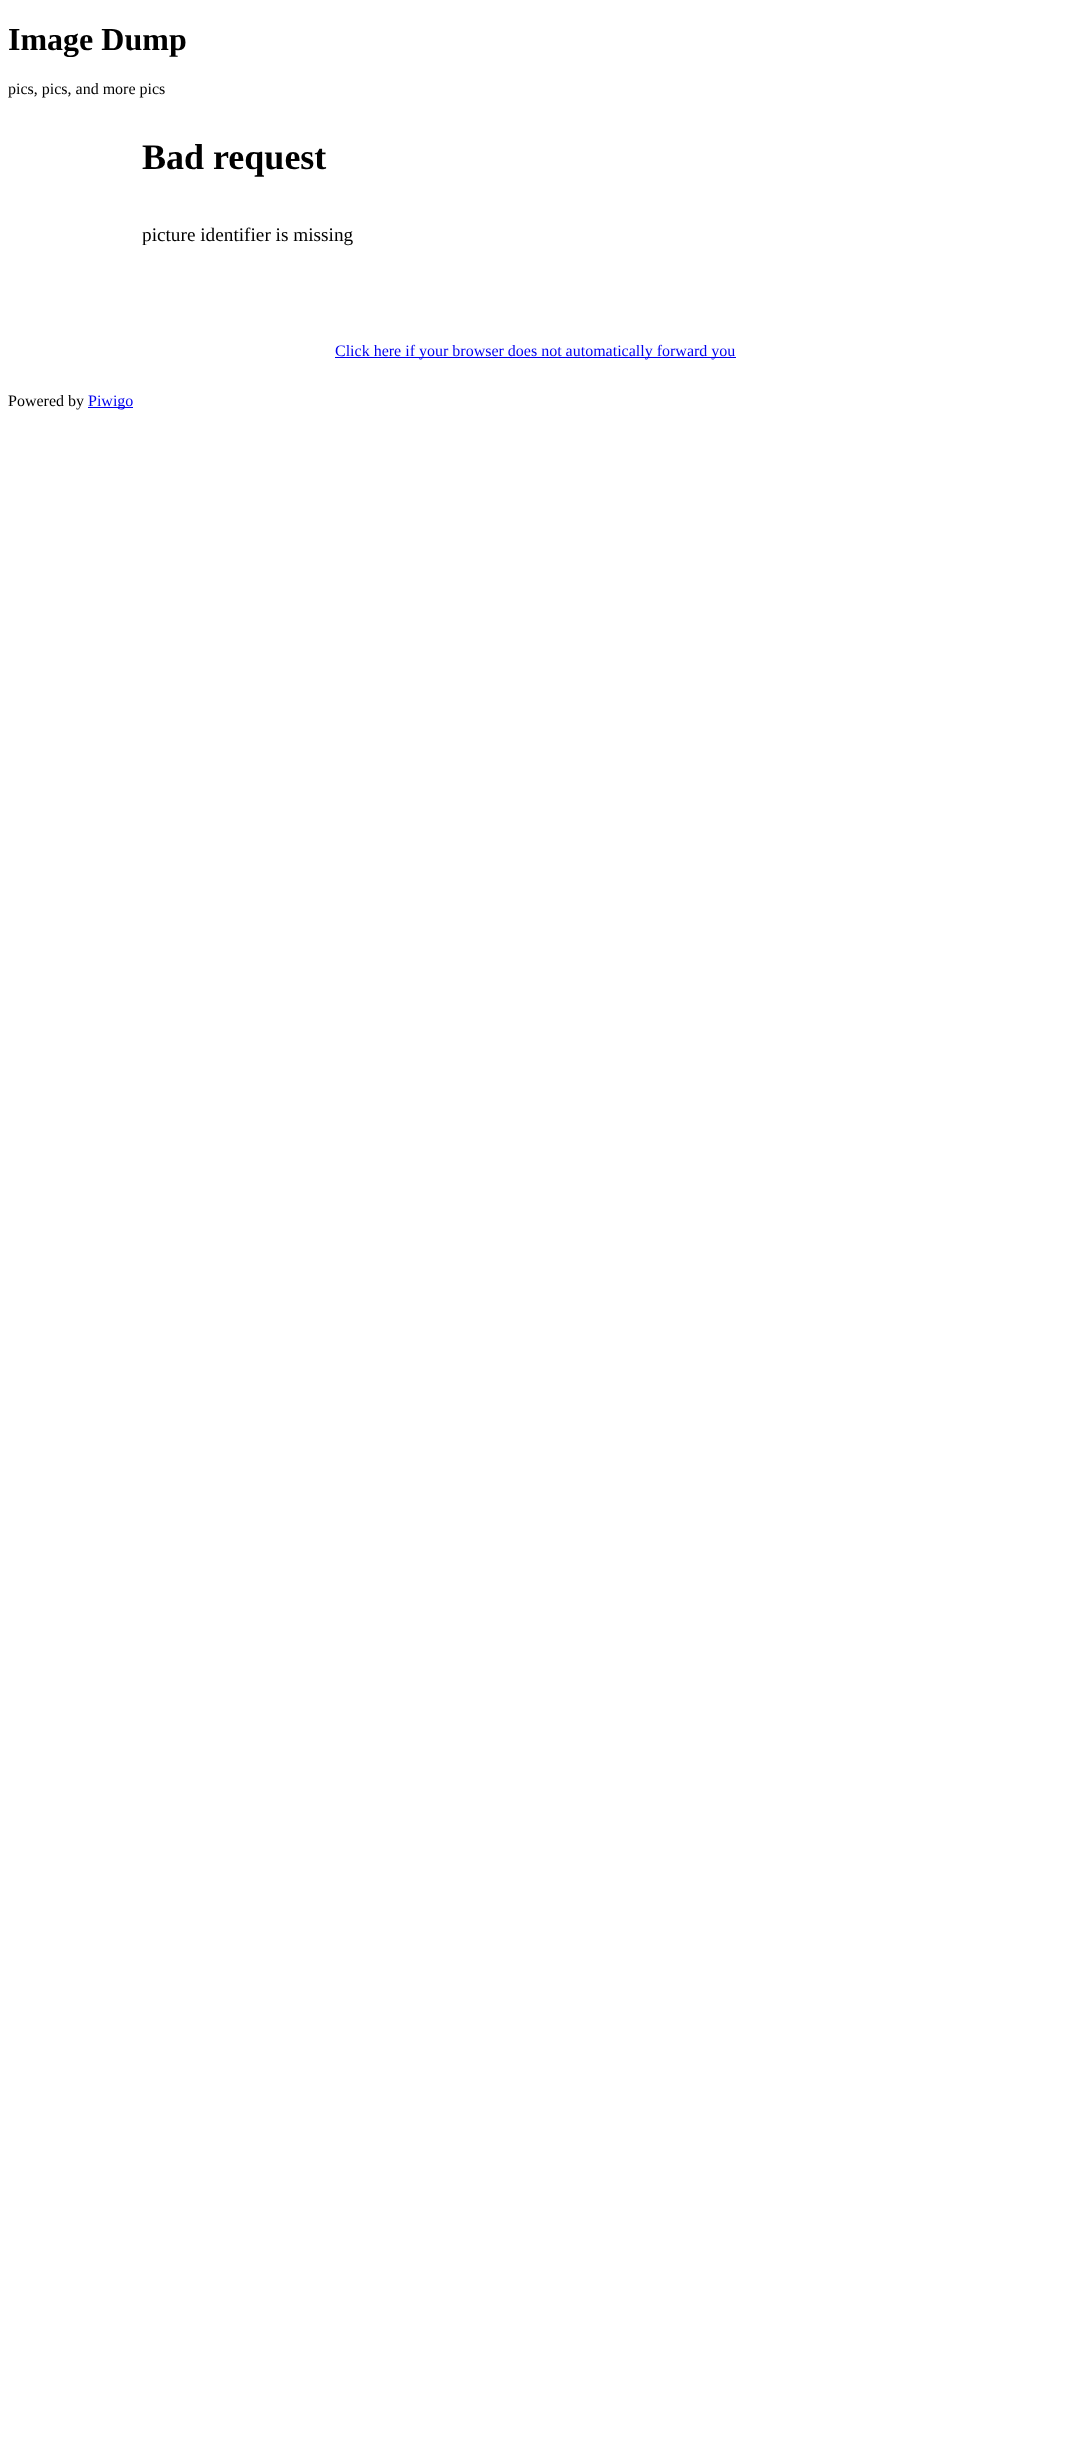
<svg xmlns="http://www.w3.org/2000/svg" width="1071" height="2441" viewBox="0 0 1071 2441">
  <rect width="100%" height="100%" fill="rgb(255,255,255)"/>
  <text x="8" y="50" font-family="Liberation Serif" font-size="32" font-weight="bold" fill="rgb(0,0,0)">Image Dump</text>
  <text x="8" y="94" font-family="Liberation Serif" font-size="16" fill="rgb(0,0,0)">pics, pics, and more pics</text>
  <text x="142" y="169" font-family="Liberation Serif" font-size="36" font-weight="bold" fill="rgb(0,0,0)">Bad request</text>
  <text x="142" y="241" font-family="Liberation Serif" font-size="19.25" fill="rgb(0,0,0)">picture identifier is missing</text>
  <rect x="335" y="357" width="401" height="1" fill="rgb(0,0,238)"/>
  <text x="335" y="356" font-family="Liberation Serif" font-size="16" fill="rgb(0,0,238)">Click here if your browser does not automatically forward you</text>
  <text x="8" y="406" font-family="Liberation Serif" font-size="16" fill="rgb(0,0,0)">Powered by</text>
  <rect x="88" y="407" width="45" height="1" fill="rgb(0,0,238)"/>
  <text x="88" y="406" font-family="Liberation Serif" font-size="16" fill="rgb(0,0,238)">Piwigo</text>
</svg>
